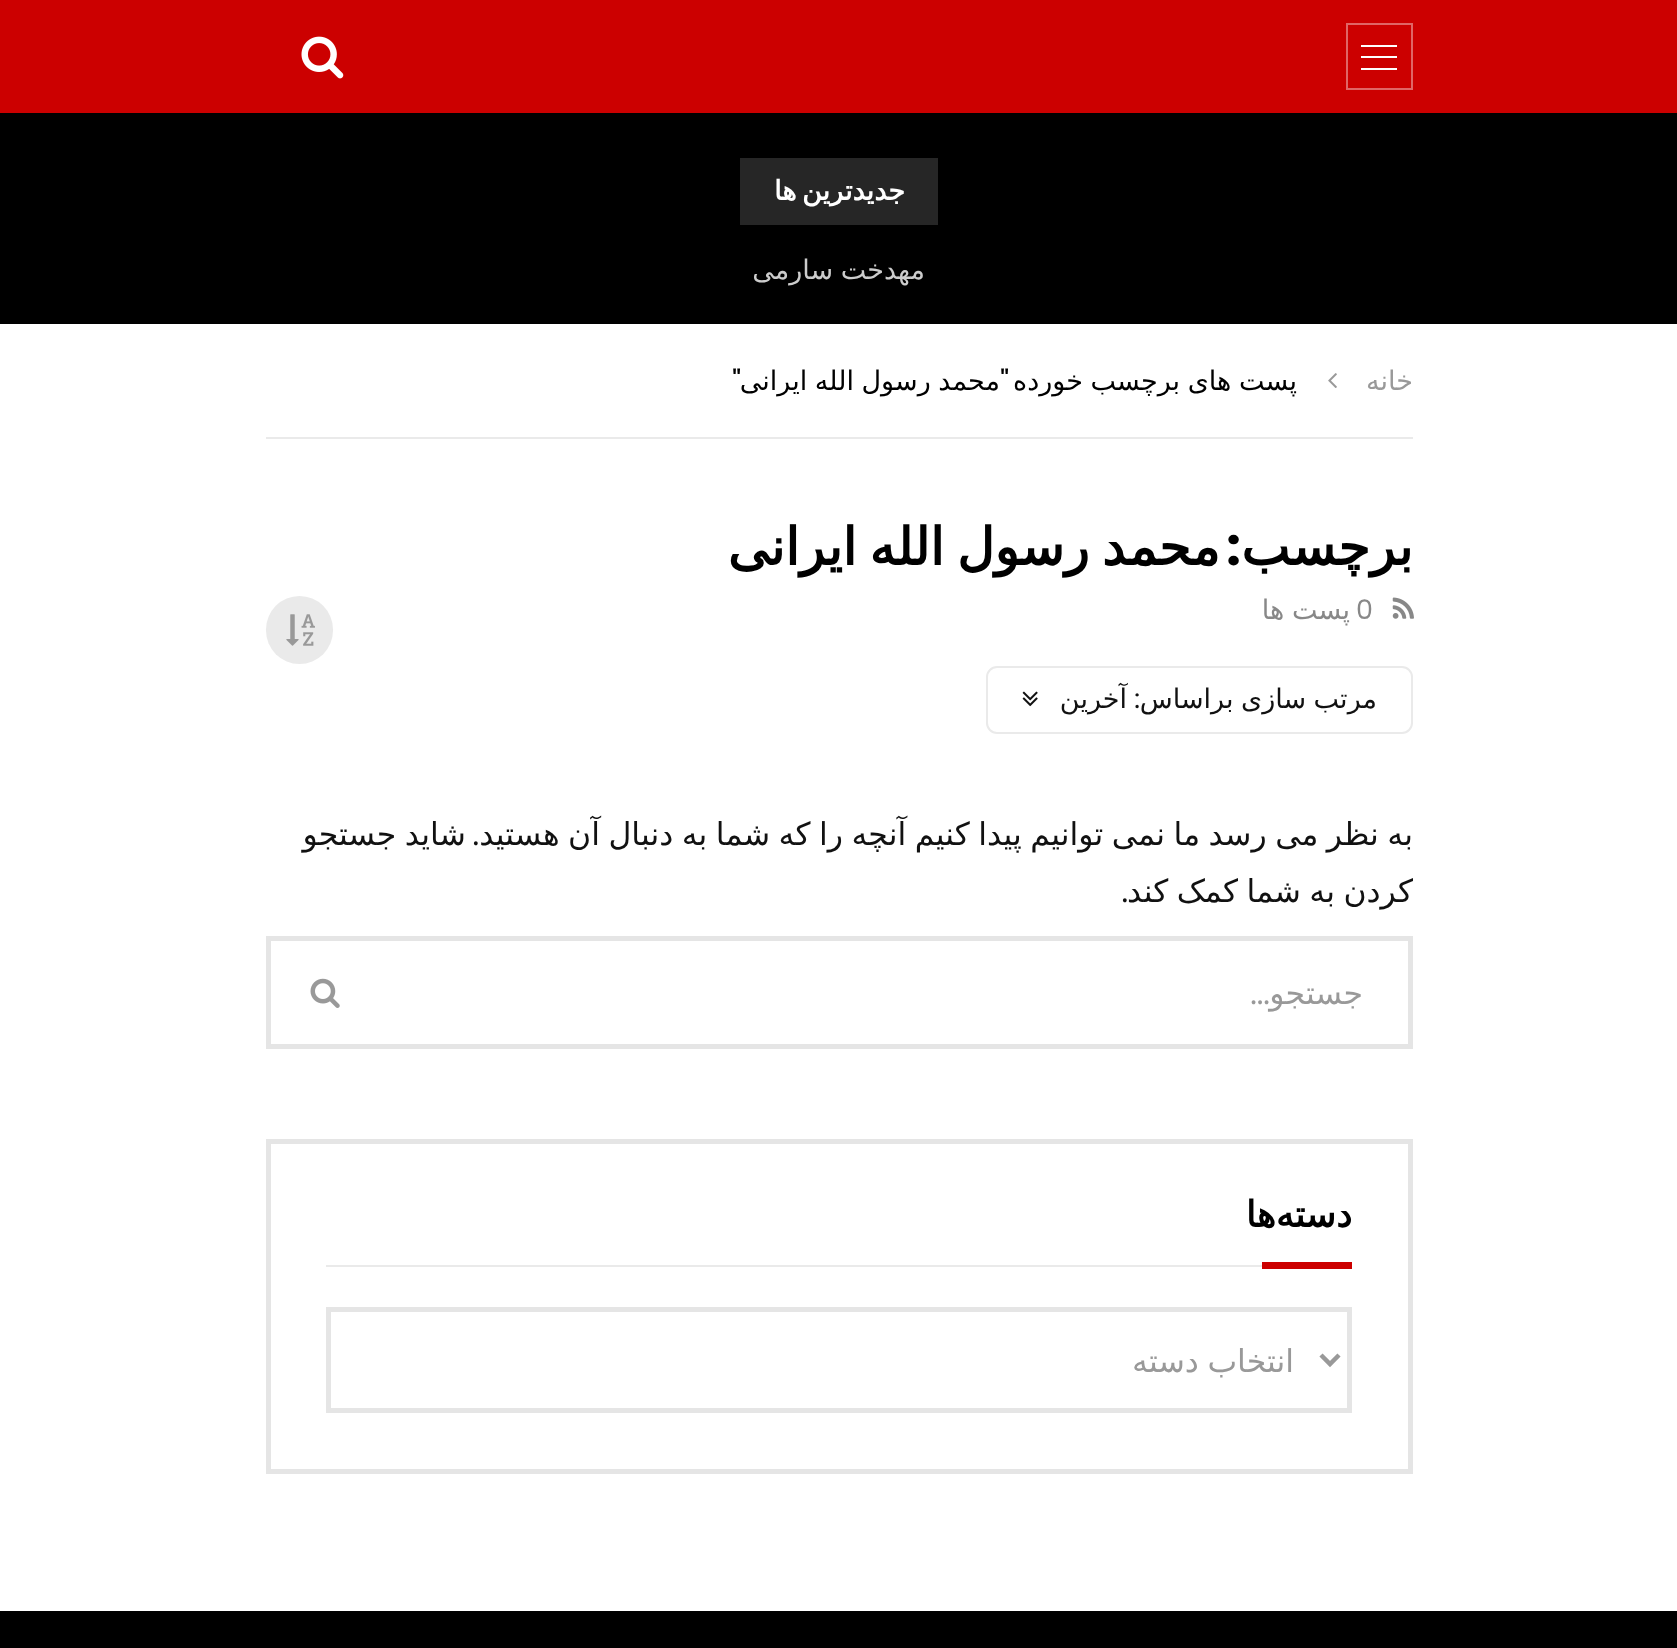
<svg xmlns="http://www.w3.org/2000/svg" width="1677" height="1648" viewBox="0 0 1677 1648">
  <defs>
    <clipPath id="clip1"><rect x="1022" y="668" width="355" height="63"/></clipPath>
  </defs>
  <rect width="100%" height="100%" fill="rgb(255,255,255)"/>
  <rect x="0" y="0" width="1677" height="113" fill="rgb(204,0,0)"/>
  <rect x="1347" y="24" width="65" height="65" fill="none" stroke="rgb(224,102,102)" stroke-width="2"/>
  <rect x="1361" y="45" width="36" height="2" fill="rgb(255,255,255)"/>
  <rect x="1361" y="56" width="36" height="2" fill="rgb(255,255,255)"/>
  <rect x="1361" y="68" width="36" height="2" fill="rgb(255,255,255)"/>
  <image x="301" y="36" width="43" height="43" href="pic1.png"/>
  <rect x="0" y="113" width="1677" height="211" fill="rgb(0,0,0)"/>
  <rect x="740" y="158" width="198" height="67" fill="rgb(38,38,38)"/>
  <text x="905" y="200" word-spacing="-3" font-family="DejaVu Sans" font-size="27" font-weight="bold" direction="rtl" fill="rgb(255,255,255)">جدیدترین ها</text>
  <text x="925" y="279" word-spacing="-1" font-family="DejaVu Sans" font-size="27" direction="rtl" fill="rgb(204,204,204)">مهدخت سارمی</text>
  <rect x="266" y="437" width="1147" height="2" fill="rgb(234,234,234)"/>
  <text x="1413" y="390" font-family="DejaVu Sans" font-size="27" direction="rtl" fill="rgb(153,153,153)">خانه</text>
  <image x="1328" y="373" width="9" height="15" href="pic2.png"/>
  <g font-family="DejaVu Sans" font-size="27" direction="rtl" fill="rgb(0,0,0)">
    <text x="1297" y="390" word-spacing="-1">پست های برچسب خورده</text>
    <text x="1000" y="390" word-spacing="-1">محمد رسول الله ایرانی</text>
  </g>
  <g font-family="Poppins" font-size="27" font-weight="500" direction="rtl" fill="rgb(0,0,0)">
    <text x="1009" y="390">"</text>
    <text x="741" y="390">"</text>
  </g>
  <text x="1413" y="565" font-family="DejaVu Sans" font-size="51.75" font-weight="bold" direction="rtl" fill="rgb(0,0,0)">برچسب</text>
  <text x="1241" y="565" font-family="Poppins" font-size="51.75" font-weight="bold" direction="rtl" fill="rgb(0,0,0)">:</text>
  <text x="1220" y="565" word-spacing="-4" font-family="DejaVu Sans" font-size="51.75" font-weight="bold" direction="rtl" fill="rgb(0,0,0)">محمد رسول الله ایرانی</text>
  <image x="1392" y="597" width="22" height="22" href="pic3.png"/>
  <text x="1356" y="619" font-family="Poppins" font-size="27" fill="rgb(136,136,136)">0</text>
  <text x="1350" y="619" word-spacing="-1" font-family="DejaVu Sans" font-size="27" direction="rtl" fill="rgb(136,136,136)">پست ها</text>
  <rect x="987" y="667" width="425" height="66" rx="10" fill="none" stroke="rgb(234,234,234)" stroke-width="2"/>
  <g clip-path="url(#clip1)">
    <text x="1377" y="708" word-spacing="-1" font-family="DejaVu Sans" font-size="27" direction="rtl" fill="rgb(17,17,17)">مرتب سازی براساس</text>
  </g>
  <text x="1140" y="708" font-family="Poppins" font-size="27" direction="rtl" fill="rgb(17,17,17)">:</text>
  <text x="1127" y="708" font-family="DejaVu Sans" font-size="27" direction="rtl" fill="rgb(17,17,17)">آخرین</text>
  <image x="1022" y="691" width="16" height="16" href="pic4.png"/>
  <rect x="266" y="596" width="67" height="68" rx="33.5" fill="rgb(234,234,234)"/>
  <image x="286" y="614" width="29" height="32" href="pic5.png"/>
  <text x="1413" y="845" word-spacing="-1.5" font-family="DejaVu Sans" font-size="31.5" direction="rtl" fill="rgb(17,17,17)">به نظر می رسد ما نمی توانیم پیدا کنیم آنچه را که شما به دنبال آن هستید</text>
  <text x="479" y="845" font-family="Poppins" font-size="31.5" direction="rtl" fill="rgb(17,17,17)">.</text>
  <g font-family="DejaVu Sans" font-size="31.5" direction="rtl" fill="rgb(17,17,17)">
    <text x="466" y="845" word-spacing="-1.5">شاید جستجو</text>
    <text x="1413" y="902" word-spacing="-1.5">کردن به شما کمک کند</text>
  </g>
  <text x="1128" y="902" font-family="Poppins" font-size="31.5" direction="rtl" fill="rgb(17,17,17)">.</text>
  <rect x="268.5" y="938.5" width="1142" height="108" fill="none" stroke="rgb(229,229,229)" stroke-width="5"/>
  <text x="1270" y="1004" font-family="Poppins" font-size="31.5" direction="rtl" fill="rgb(153,153,153)">...</text>
  <text x="1363" y="1004" font-family="DejaVu Sans" font-size="31.5" direction="rtl" fill="rgb(153,153,153)">جستجو</text>
  <image x="310" y="978" width="30" height="30" href="pic6.png"/>
  <rect x="268.5" y="1141.5" width="1142" height="330" fill="none" stroke="rgb(229,229,229)" stroke-width="5"/>
  <text x="1352" y="1227" font-family="DejaVu Sans" font-size="36" font-weight="bold" direction="rtl" fill="rgb(0,0,0)">دسته‌ها</text>
  <rect x="1262" y="1262" width="90" height="7" fill="rgb(204,0,0)"/>
  <rect x="326" y="1265" width="936" height="2" fill="rgb(234,234,234)"/>
  <rect x="328.5" y="1309.5" width="1021" height="101" fill="none" stroke="rgb(229,229,229)" stroke-width="5"/>
  <path d="M1321 1355L1330 1364L1339 1355" fill="none" stroke="rgb(153,153,153)" stroke-width="4.5"/>
  <text x="1294" y="1372" word-spacing="-1.5" font-family="DejaVu Sans" font-size="31.5" direction="rtl" fill="rgb(153,153,153)">انتخاب دسته</text>
  <rect x="0" y="1611" width="1677" height="37" fill="rgb(0,0,0)"/>
</svg>
